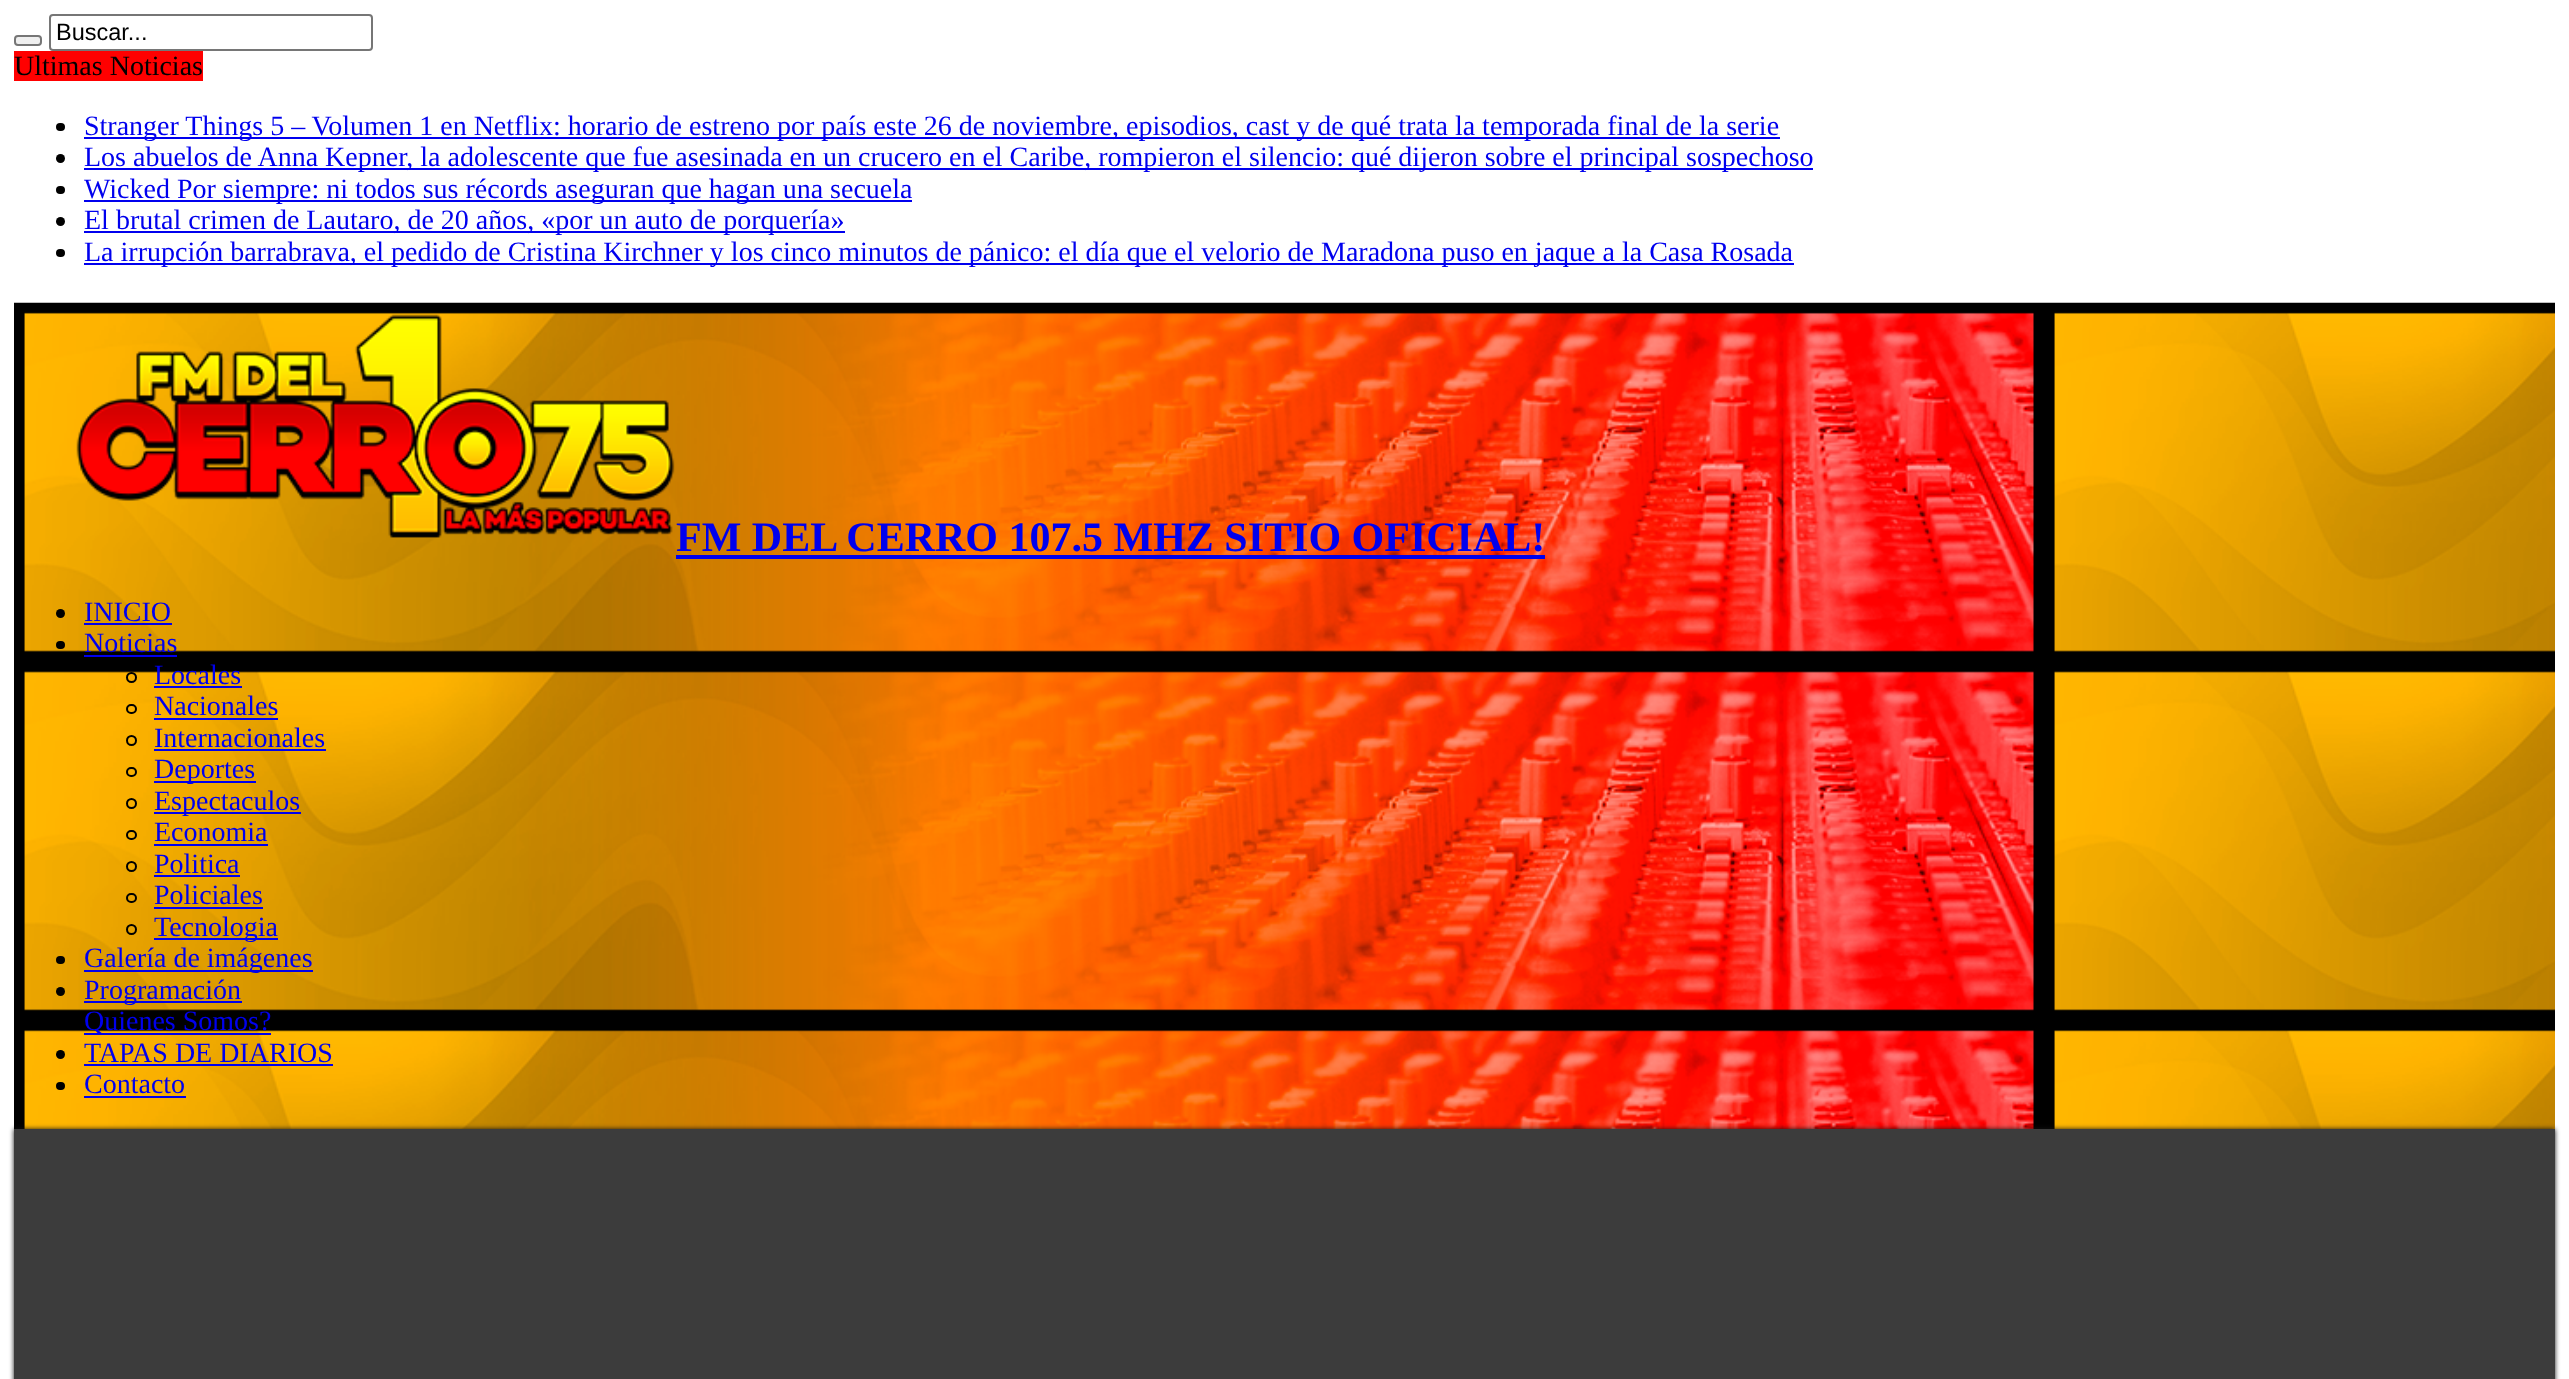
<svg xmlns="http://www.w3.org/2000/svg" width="2569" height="1379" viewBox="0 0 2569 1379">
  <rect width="100%" height="100%" fill="rgb(255,255,255)"/>
  <rect x="15" y="36" width="26" height="9" rx="3" fill="rgb(239,239,239)" stroke="rgb(118,118,118)" stroke-width="2"/>
  <rect x="50" y="15" width="322" height="35" rx="3" fill="none" stroke="rgb(118,118,118)" stroke-width="2"/>
  <text x="56" y="40" font-family="Liberation Sans" font-size="23.5" fill="rgb(0,0,0)">Buscar...</text>
  <rect x="14" y="51" width="189" height="30" fill="rgb(255,0,0)"/>
  <text x="14" y="75" font-family="Liberation Serif" font-size="28" fill="rgb(0,0,0)">Ultimas Noticias</text>
  <rect x="56" y="123" width="9" height="8" rx="4" fill="rgb(0,0,0)"/>
  <rect x="84" y="137" width="1696" height="2" fill="rgb(0,0,238)"/>
  <text x="84" y="135" font-family="Liberation Serif" font-size="28" fill="rgb(0,0,238)">Stranger Things 5 – Volumen 1 en Netflix: horario de estreno por país este 26 de noviembre, episodios, cast y de qué trata la temporada final de la serie</text>
  <circle cx="60.5" cy="158.5" r="4.5" fill="rgb(0,0,0)"/>
  <rect x="84" y="168" width="1729" height="2" fill="rgb(0,0,238)"/>
  <text x="84" y="166" font-family="Liberation Serif" font-size="28" fill="rgb(0,0,238)">Los abuelos de Anna Kepner, la adolescente que fue asesinada en un crucero en el Caribe, rompieron el silencio: qué dijeron sobre el principal sospechoso</text>
  <rect x="56" y="186" width="9" height="8" rx="4" fill="rgb(0,0,0)"/>
  <rect x="84" y="200" width="828" height="2" fill="rgb(0,0,238)"/>
  <text x="84" y="198" font-family="Liberation Serif" font-size="28" fill="rgb(0,0,238)">Wicked Por siempre: ni todos sus récords aseguran que hagan una secuela</text>
  <circle cx="60.5" cy="221.5" r="4.5" fill="rgb(0,0,0)"/>
  <rect x="84" y="231" width="761" height="2" fill="rgb(0,0,238)"/>
  <text x="84" y="229" font-family="Liberation Serif" font-size="28" fill="rgb(0,0,238)">El brutal crimen de Lautaro, de 20 años, «por un auto de porquería»</text>
  <rect x="56" y="249" width="9" height="8" rx="4" fill="rgb(0,0,0)"/>
  <rect x="84" y="263" width="1710" height="2" fill="rgb(0,0,238)"/>
  <text x="84" y="261" font-family="Liberation Serif" font-size="28" fill="rgb(0,0,238)">La irrupción barrabrava, el pedido de Cristina Kirchner y los cinco minutos de pánico: el día que el velorio de Maradona puso en jaque a la Casa Rosada</text>
  <image x="14" y="302" width="2541" height="827" href="pic1.png"/>
  <image x="76" y="314" width="599" height="224" href="pic2.png"/>
  <text x="676" y="551" font-family="Liberation Serif" font-size="42" font-weight="bold" fill="rgb(0,0,238)">FM DEL CERRO 107.5 MHZ SITIO OFICIAL!</text>
  <rect x="676" y="555" width="869" height="4" fill="rgb(0,0,238)"/>
  <circle cx="60.5" cy="613.5" r="4.5" fill="rgb(0,0,0)"/>
  <text x="84" y="621" font-family="Liberation Serif" font-size="28" fill="rgb(0,0,238)">INICIO</text>
  <rect x="84" y="623" width="88" height="2" fill="rgb(0,0,238)"/>
  <rect x="56" y="641" width="9" height="8" rx="4" fill="rgb(0,0,0)"/>
  <text x="84" y="652" font-family="Liberation Serif" font-size="28" fill="rgb(0,0,238)">Noticias</text>
  <rect x="84" y="655" width="93" height="2" fill="rgb(0,0,238)"/>
  <circle cx="131.5" cy="677.5" r="4.5" fill="none" stroke="rgb(0,0,0)" stroke-width="2"/>
  <text x="154" y="684" font-family="Liberation Serif" font-size="28" fill="rgb(0,0,238)">Locales</text>
  <rect x="154" y="686" width="88" height="2" fill="rgb(0,0,238)"/>
  <rect x="127" y="705" width="9" height="8" rx="4" fill="none" stroke="rgb(0,0,0)" stroke-width="2"/>
  <text x="154" y="715" font-family="Liberation Serif" font-size="28" fill="rgb(0,0,238)">Nacionales</text>
  <rect x="154" y="718" width="124" height="2" fill="rgb(0,0,238)"/>
  <circle cx="131.5" cy="740.5" r="4.5" fill="none" stroke="rgb(0,0,0)" stroke-width="2"/>
  <text x="154" y="747" font-family="Liberation Serif" font-size="28" fill="rgb(0,0,238)">Internacionales</text>
  <rect x="154" y="749" width="172" height="2" fill="rgb(0,0,238)"/>
  <rect x="127" y="768" width="9" height="8" rx="4" fill="none" stroke="rgb(0,0,0)" stroke-width="2"/>
  <rect x="154" y="781" width="102" height="2" fill="rgb(0,0,238)"/>
  <text x="154" y="778" font-family="Liberation Serif" font-size="28" fill="rgb(0,0,238)">Deportes</text>
  <circle cx="131.5" cy="803.5" r="4.5" fill="none" stroke="rgb(0,0,0)" stroke-width="2"/>
  <rect x="154" y="812" width="147" height="2" fill="rgb(0,0,238)"/>
  <text x="154" y="810" font-family="Liberation Serif" font-size="28" fill="rgb(0,0,238)">Espectaculos</text>
  <rect x="127" y="831" width="9" height="8" rx="4" fill="none" stroke="rgb(0,0,0)" stroke-width="2"/>
  <text x="154" y="841" font-family="Liberation Serif" font-size="28" fill="rgb(0,0,238)">Economia</text>
  <rect x="154" y="844" width="114" height="2" fill="rgb(0,0,238)"/>
  <circle cx="131.5" cy="866.5" r="4.5" fill="none" stroke="rgb(0,0,0)" stroke-width="2"/>
  <text x="154" y="873" font-family="Liberation Serif" font-size="28" fill="rgb(0,0,238)">Politica</text>
  <rect x="154" y="875" width="86" height="2" fill="rgb(0,0,238)"/>
  <rect x="127" y="894" width="9" height="8" rx="4" fill="none" stroke="rgb(0,0,0)" stroke-width="2"/>
  <text x="154" y="904" font-family="Liberation Serif" font-size="28" fill="rgb(0,0,238)">Policiales</text>
  <rect x="154" y="907" width="109" height="2" fill="rgb(0,0,238)"/>
  <circle cx="131.5" cy="929.5" r="4.5" fill="none" stroke="rgb(0,0,0)" stroke-width="2"/>
  <rect x="154" y="938" width="124" height="2" fill="rgb(0,0,238)"/>
  <text x="154" y="936" font-family="Liberation Serif" font-size="28" fill="rgb(0,0,238)">Tecnologia</text>
  <rect x="56" y="956" width="9" height="8" rx="4" fill="rgb(0,0,0)"/>
  <rect x="84" y="970" width="229" height="2" fill="rgb(0,0,238)"/>
  <text x="84" y="967" font-family="Liberation Serif" font-size="28" fill="rgb(0,0,238)">Galería de imágenes</text>
  <circle cx="60.5" cy="991.5" r="4.5" fill="rgb(0,0,0)"/>
  <rect x="84" y="1001" width="158" height="2" fill="rgb(0,0,238)"/>
  <text x="84" y="999" font-family="Liberation Serif" font-size="28" fill="rgb(0,0,238)">Programación</text>
  <rect x="84" y="1033" width="187" height="2" fill="rgb(0,0,238)"/>
  <text x="84" y="1030" font-family="Liberation Serif" font-size="28" fill="rgb(0,0,238)">Quienes Somos?</text>
  <circle cx="60.5" cy="1054.5" r="4.5" fill="rgb(0,0,0)"/>
  <text x="84" y="1062" font-family="Liberation Serif" font-size="28" fill="rgb(0,0,238)">TAPAS DE DIARIOS</text>
  <rect x="84" y="1064" width="249" height="2" fill="rgb(0,0,238)"/>
  <rect x="56" y="1082" width="9" height="8" rx="4" fill="rgb(0,0,0)"/>
  <text x="84" y="1093" font-family="Liberation Serif" font-size="28" fill="rgb(0,0,238)">Contacto</text>
  <rect x="84" y="1096" width="102" height="2" fill="rgb(0,0,238)"/>
  <rect x="14" y="1129" width="2541" height="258" fill="rgb(20,20,20)" filter="blur(2.5px)"/>
  <rect x="14" y="1129" width="2541" height="250" fill="rgb(60,60,60)"/>
</svg>
